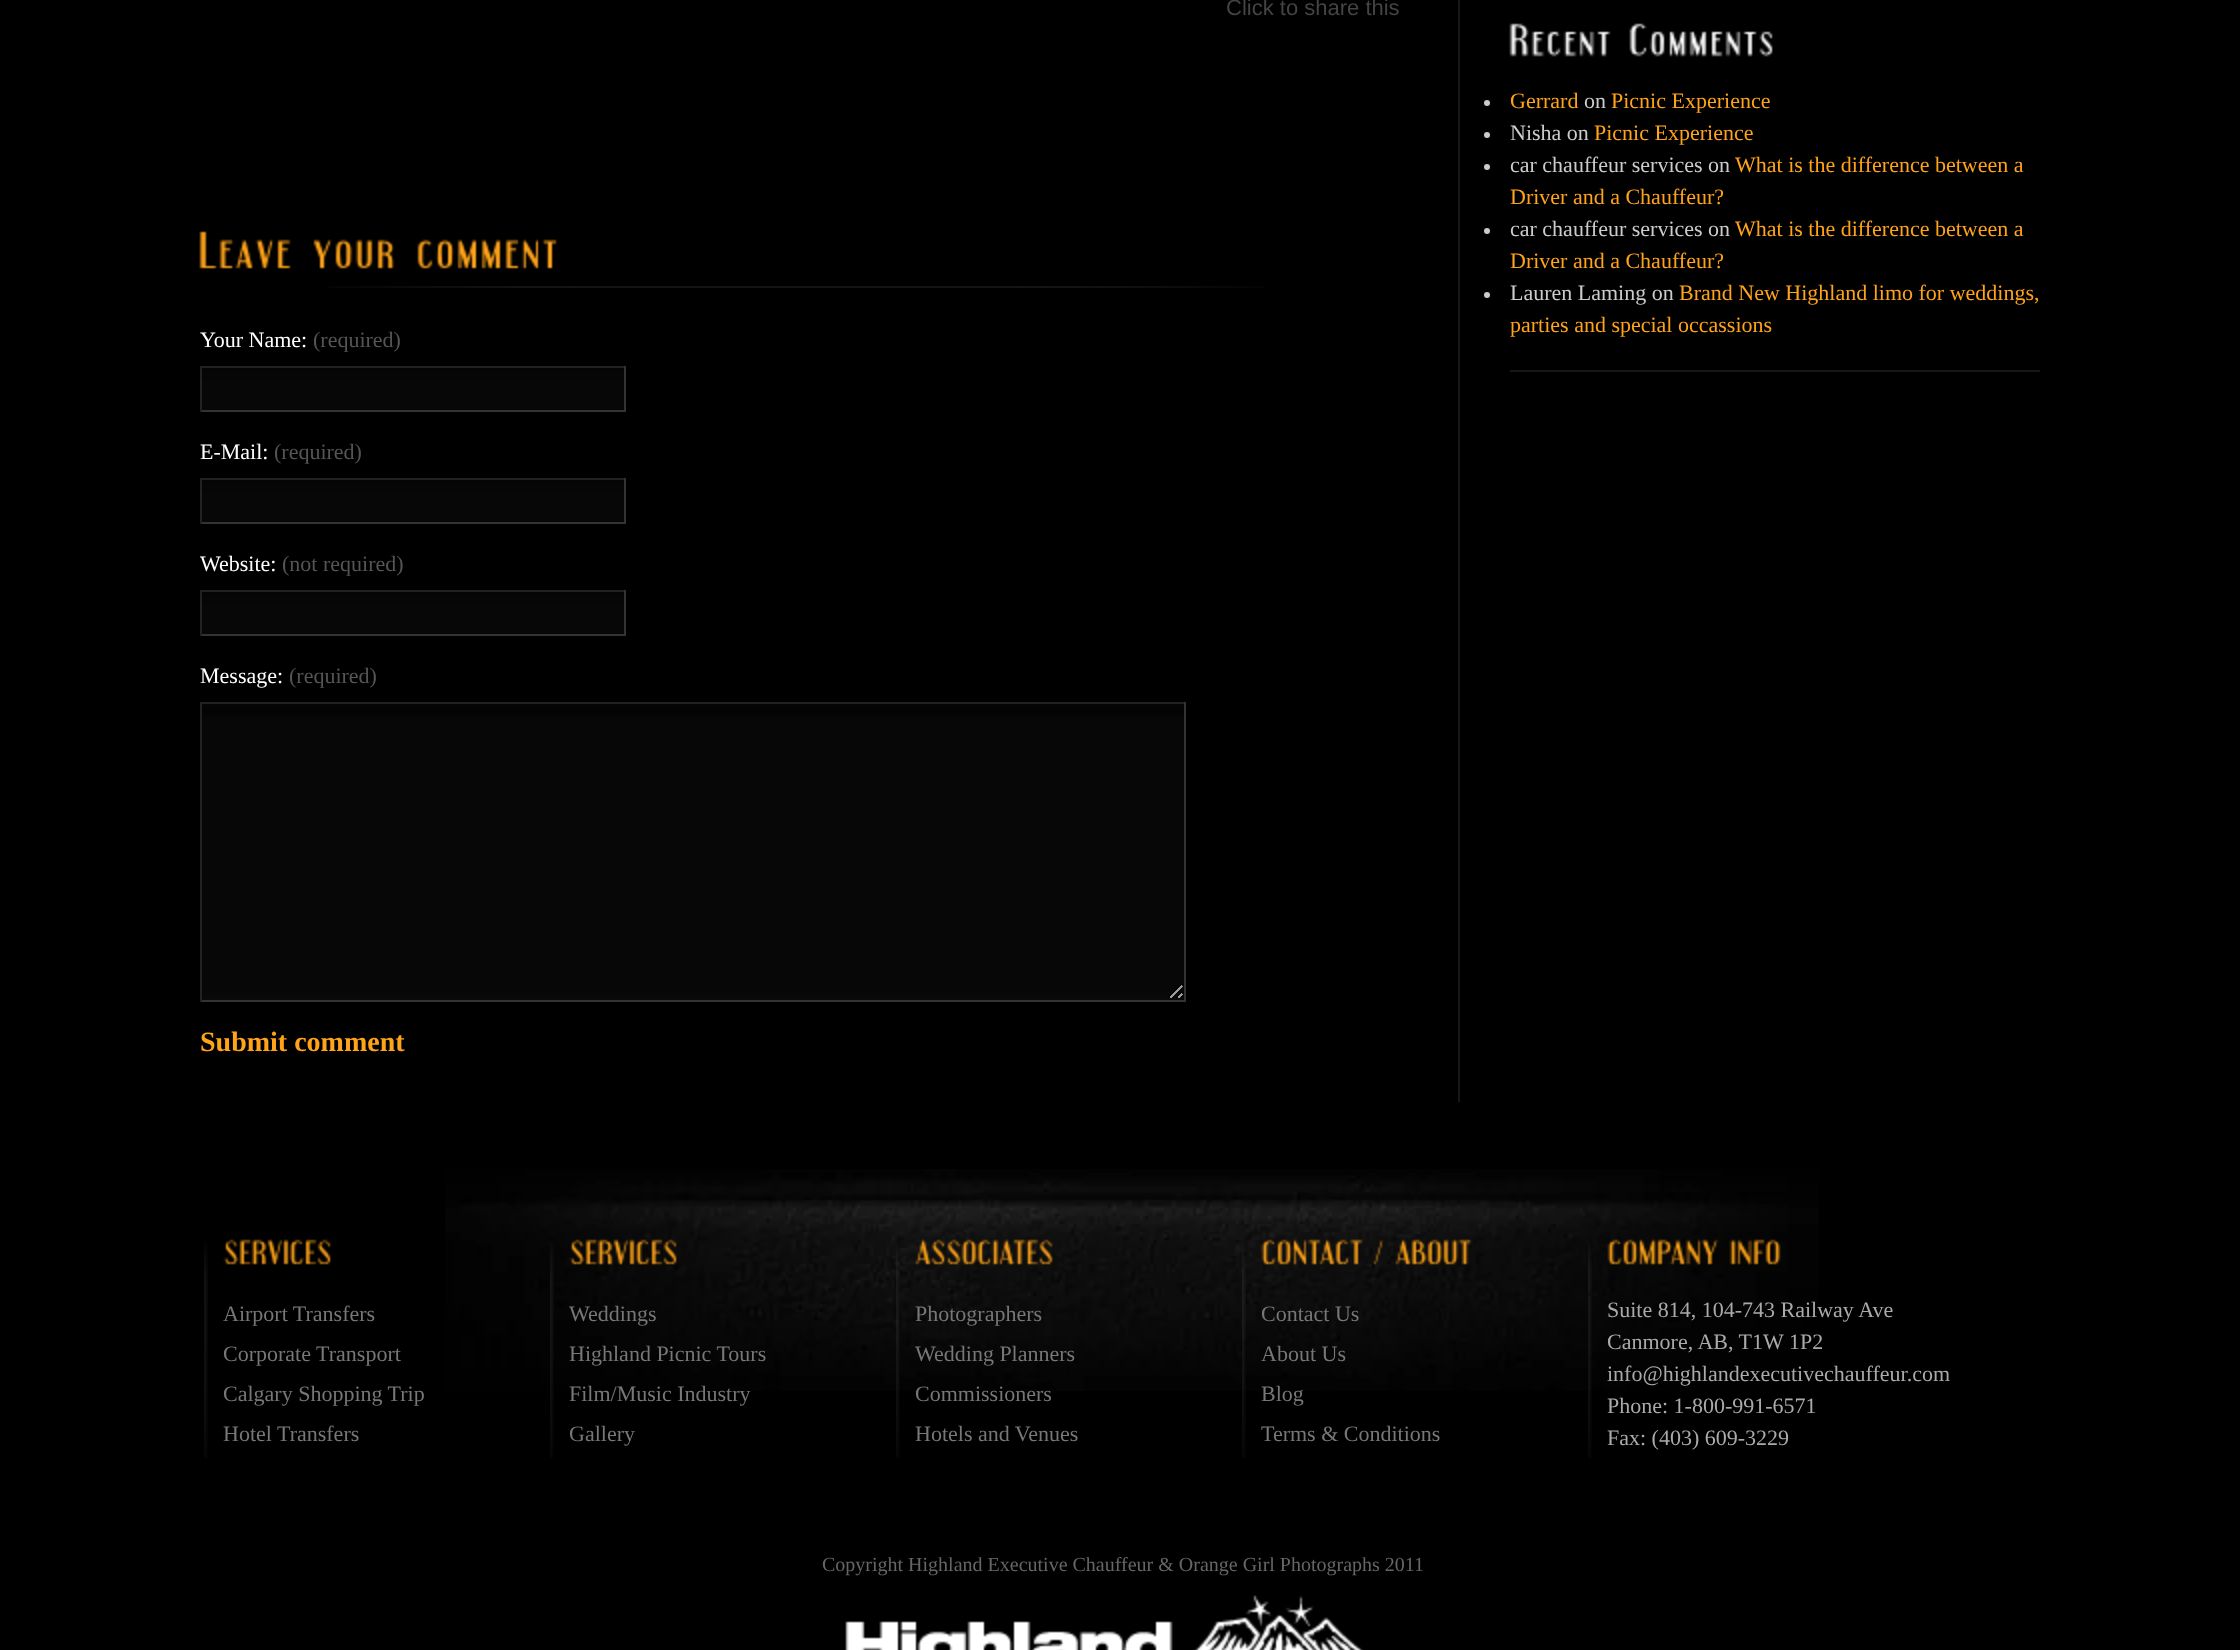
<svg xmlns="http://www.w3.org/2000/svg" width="2240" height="1650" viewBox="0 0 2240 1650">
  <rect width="100%" height="100%" fill="rgb(0,0,0)"/>
  <rect x="1458" y="0" width="2" height="1102" fill="rgb(23,23,23)"/>
  <text x="1226" y="15" font-family="Liberation Sans" font-size="22" fill="rgb(68,68,68)">Click to share this</text>
  <image x="327" y="286" width="938" height="2" href="pic1.png"/>
  <image x="199" y="231" width="92" height="38" href="pic2.png"/>
  <image x="313" y="239" width="82" height="30" href="pic3.png"/>
  <image x="417" y="239" width="141" height="30" href="pic4.png"/>
  <text x="200" y="347" font-family="Liberation Serif" font-size="22" fill="rgb(255,255,255)">Your Name:</text>
  <text x="313" y="347" font-family="Liberation Serif" font-size="22" fill="rgb(85,85,85)">(required)</text>
  <image x="202" y="368" width="422" height="42" href="pic5.png"/>
  <rect x="200" y="366" width="426" height="2" fill="rgb(34,34,34)"/>
  <rect x="624" y="366" width="2" height="46" fill="rgb(51,51,51)"/>
  <rect x="200" y="410" width="426" height="2" fill="rgb(51,51,51)"/>
  <rect x="200" y="366" width="2" height="46" fill="rgb(34,34,34)"/>
  <text x="200" y="459" font-family="Liberation Serif" font-size="22" fill="rgb(255,255,255)">E-Mail:</text>
  <text x="274" y="459" font-family="Liberation Serif" font-size="22" fill="rgb(85,85,85)">(required)</text>
  <image x="202" y="480" width="422" height="42" href="pic5.png"/>
  <rect x="200" y="478" width="426" height="2" fill="rgb(34,34,34)"/>
  <rect x="624" y="478" width="2" height="46" fill="rgb(51,51,51)"/>
  <rect x="200" y="522" width="426" height="2" fill="rgb(51,51,51)"/>
  <rect x="200" y="478" width="2" height="46" fill="rgb(34,34,34)"/>
  <text x="200" y="571" font-family="Liberation Serif" font-size="22" fill="rgb(255,255,255)">Website:</text>
  <text x="282" y="571" font-family="Liberation Serif" font-size="22" fill="rgb(85,85,85)">(not required)</text>
  <image x="202" y="592" width="422" height="42" href="pic5.png"/>
  <rect x="200" y="590" width="426" height="2" fill="rgb(34,34,34)"/>
  <rect x="624" y="590" width="2" height="46" fill="rgb(51,51,51)"/>
  <rect x="200" y="634" width="426" height="2" fill="rgb(51,51,51)"/>
  <rect x="200" y="590" width="2" height="46" fill="rgb(34,34,34)"/>
  <text x="200" y="683" font-family="Liberation Serif" font-size="22" fill="rgb(255,255,255)">Message:</text>
  <text x="289" y="683" font-family="Liberation Serif" font-size="22" fill="rgb(85,85,85)">(required)</text>
  <image x="202" y="704" width="982" height="296" href="pic6.png"/>
  <rect x="200" y="702" width="986" height="2" fill="rgb(34,34,34)"/>
  <rect x="1184" y="702" width="2" height="300" fill="rgb(51,51,51)"/>
  <rect x="200" y="1000" width="986" height="2" fill="rgb(51,51,51)"/>
  <rect x="200" y="702" width="2" height="300" fill="rgb(34,34,34)"/>
  <text x="200" y="1051" font-family="Liberation Serif" font-size="28" font-weight="bold" fill="rgb(255,163,25)">Submit comment</text>
  <image x="1509" y="23" width="102" height="34" href="pic7.png"/>
  <image x="1629" y="23" width="144" height="34" href="pic8.png"/>
  <circle cx="1487" cy="103" r="3" fill="rgb(204,204,204)"/>
  <text x="1510" y="108" font-family="Liberation Serif" font-size="22" fill="rgb(255,163,25)">Gerrard</text>
  <text x="1584" y="108" font-family="Liberation Serif" font-size="22" fill="rgb(204,204,204)">on</text>
  <text x="1611" y="108" font-family="Liberation Serif" font-size="22" fill="rgb(255,163,25)">Picnic Experience</text>
  <circle cx="1487" cy="135" r="3" fill="rgb(204,204,204)"/>
  <text x="1510" y="140" font-family="Liberation Serif" font-size="22" fill="rgb(204,204,204)">Nisha on</text>
  <text x="1594" y="140" font-family="Liberation Serif" font-size="22" fill="rgb(255,163,25)">Picnic Experience</text>
  <circle cx="1487" cy="167" r="3" fill="rgb(204,204,204)"/>
  <text x="1510" y="172" font-family="Liberation Serif" font-size="22" fill="rgb(204,204,204)">car chauffeur services on</text>
  <g font-family="Liberation Serif" font-size="22" fill="rgb(255,163,25)">
    <text x="1735" y="172">What is the difference between a</text>
    <text x="1510" y="204">Driver and a Chauffeur?</text>
  </g>
  <circle cx="1487" cy="231" r="3" fill="rgb(204,204,204)"/>
  <text x="1510" y="236" font-family="Liberation Serif" font-size="22" fill="rgb(204,204,204)">car chauffeur services on</text>
  <g font-family="Liberation Serif" font-size="22" fill="rgb(255,163,25)">
    <text x="1735" y="236">What is the difference between a</text>
    <text x="1510" y="268">Driver and a Chauffeur?</text>
  </g>
  <circle cx="1487" cy="295" r="3" fill="rgb(204,204,204)"/>
  <text x="1510" y="300" font-family="Liberation Serif" font-size="22" fill="rgb(204,204,204)">Lauren Laming on</text>
  <g font-family="Liberation Serif" font-size="22" fill="rgb(255,163,25)">
    <text x="1679" y="300">Brand New Highland limo for weddings,</text>
    <text x="1510" y="332">parties and special occassions</text>
  </g>
  <rect x="1510" y="370" width="530" height="2" fill="rgb(23,23,23)"/>
  <image x="445" y="1169" width="1374" height="222" href="pic9.png"/>
  <image x="204" y="1241" width="4" height="217" href="pic10.png"/>
  <image x="223" y="1239" width="108" height="26" href="pic11.png"/>
  <g font-family="Liberation Serif" font-size="22" fill="rgb(119,119,119)">
    <text>
      <tspan x="223" y="1321">Airport Transfers</tspan>
      <tspan x="223" y="1361">Corporate Transport</tspan>
      <tspan x="223" y="1401">Calgary Shopping Trip</tspan>
      <tspan x="223" y="1441">Hotel Transfers</tspan>
    </text>
  </g>
  <image x="550" y="1243" width="4" height="215" href="pic12.png"/>
  <image x="569" y="1239" width="108" height="26" href="pic13.png"/>
  <g font-family="Liberation Serif" font-size="22" fill="rgb(119,119,119)">
    <text>
      <tspan x="569" y="1321">Weddings</tspan>
      <tspan x="569" y="1361">Highland Picnic Tours</tspan>
      <tspan x="569" y="1401">Film/Music Industry</tspan>
      <tspan x="569" y="1441">Gallery</tspan>
    </text>
  </g>
  <image x="896" y="1243" width="4" height="215" href="pic14.png"/>
  <image x="915" y="1239" width="138" height="26" href="pic15.png"/>
  <g font-family="Liberation Serif" font-size="22" fill="rgb(119,119,119)">
    <text>
      <tspan x="915" y="1321">Photographers</tspan>
      <tspan x="915" y="1361">Wedding Planners</tspan>
      <tspan x="915" y="1401">Commissioners</tspan>
      <tspan x="915" y="1441">Hotels and Venues</tspan>
    </text>
  </g>
  <image x="1242" y="1243" width="4" height="215" href="pic16.png"/>
  <image x="1261" y="1239" width="102" height="26" href="pic17.png"/>
  <image x="1373" y="1239" width="11" height="26" href="pic18.png"/>
  <image x="1395" y="1239" width="76" height="26" href="pic19.png"/>
  <g font-family="Liberation Serif" font-size="22" fill="rgb(119,119,119)">
    <text>
      <tspan x="1261" y="1321">Contact Us</tspan>
      <tspan x="1261" y="1361">About Us</tspan>
      <tspan x="1261" y="1401">Blog</tspan>
      <tspan x="1261" y="1441">Terms &amp; Conditions</tspan>
    </text>
  </g>
  <image x="1588" y="1243" width="4" height="215" href="pic20.png"/>
  <image x="1607" y="1239" width="112" height="26" href="pic21.png"/>
  <image x="1729" y="1239" width="52" height="26" href="pic22.png"/>
  <g font-family="Liberation Serif" font-size="22" fill="rgb(170,170,170)">
    <text>
      <tspan x="1607" y="1317">Suite 814, 104-743 Railway Ave</tspan>
      <tspan x="1607" y="1349">Canmore, AB, T1W 1P2</tspan>
      <tspan x="1607" y="1381">info@highlandexecutivechauffeur.com</tspan>
      <tspan x="1607" y="1413">Phone: 1-800-991-6571</tspan>
      <tspan x="1607" y="1445">Fax: (403) 609-3229</tspan>
    </text>
  </g>
  <text x="822" y="1571" font-family="Liberation Serif" font-size="20" fill="rgb(102,102,102)">Copyright Highland Executive Chauffeur &amp; Orange Girl Photographs 2011</text>
  <image x="845" y="1595" width="519" height="55" href="pic23.png"/>
</svg>
